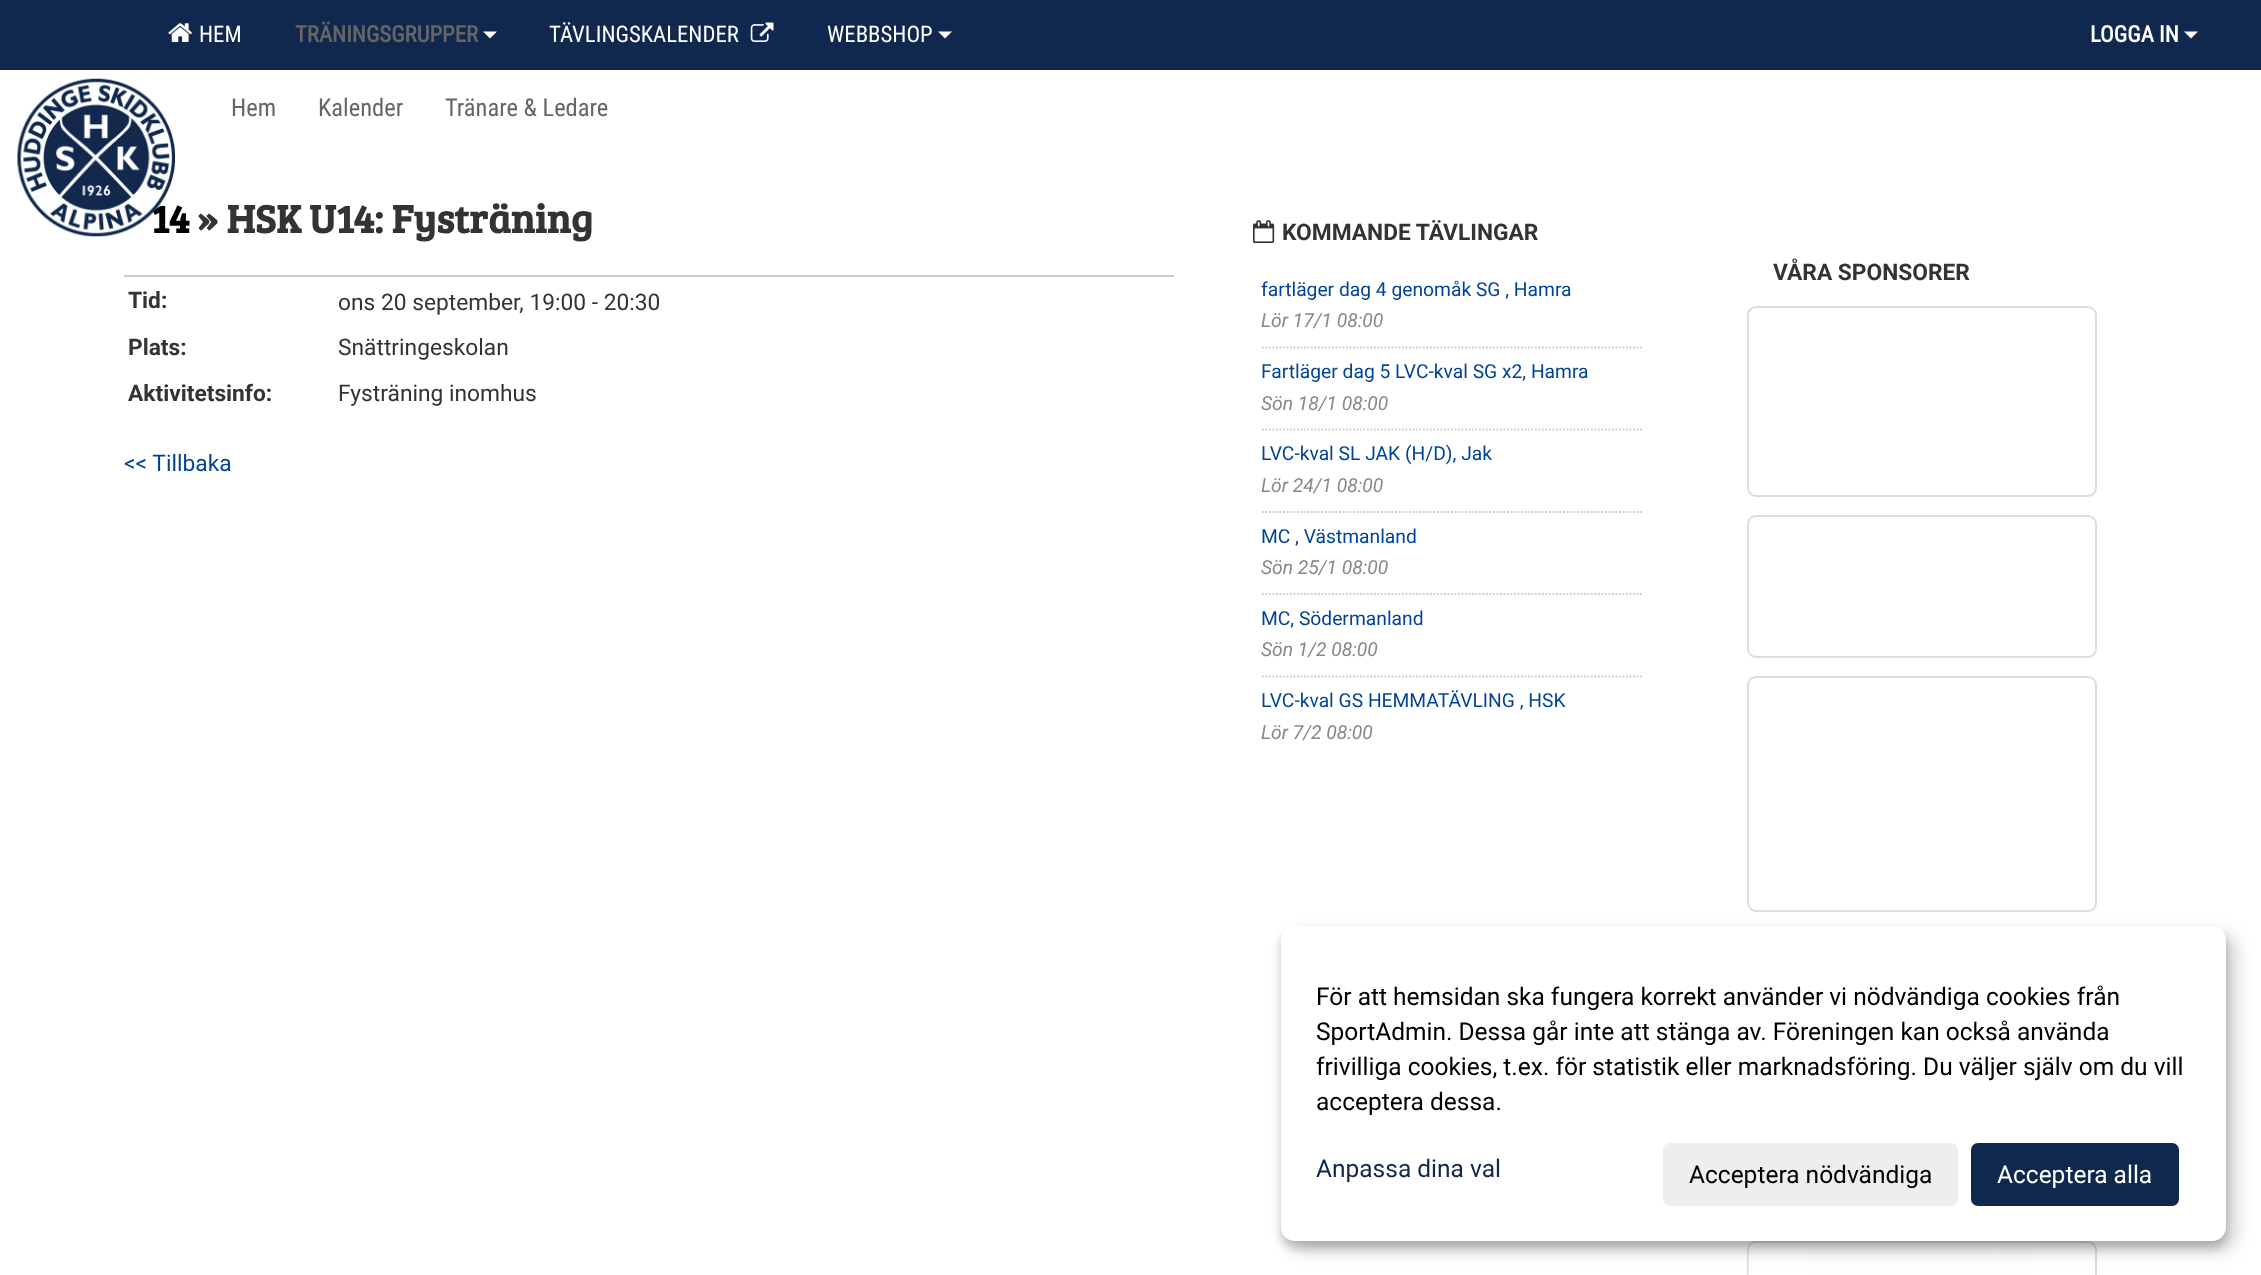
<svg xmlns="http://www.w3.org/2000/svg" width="2261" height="1275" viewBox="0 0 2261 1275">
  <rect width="100%" height="100%" fill="rgb(255,255,255)"/>
  <rect x="0" y="0" width="2261" height="70" fill="rgb(17,40,78)"/>
  <image x="168" y="23" width="24" height="19" href="pic1.png"/>
  <text x="199" y="42" font-family="Roboto Condensed" font-size="22.75" fill="rgb(255,255,255)">HEM</text>
  <text x="295" y="42" font-family="Roboto Condensed" font-size="22.75" font-weight="bold" fill="rgb(102,102,102)">TRÄNINGSGRUPPER</text>
  <path d="M483 31.5H497L490 38.5Z" fill="rgb(255,255,255)"/>
  <text x="549" y="42" font-family="Roboto Condensed" font-size="22.75" fill="rgb(255,255,255)">TÄVLINGSKALENDER</text>
  <image x="750" y="22" width="24" height="20" href="pic2.png"/>
  <text x="827" y="42" font-family="Roboto Condensed" font-size="22.75" fill="rgb(255,255,255)">WEBBSHOP</text>
  <path d="M938 31.5H952L945 38.5Z" fill="rgb(255,255,255)"/>
  <text x="2090" y="42" font-family="Roboto Condensed" font-size="22.75" font-weight="bold" fill="rgb(255,255,255)">LOGGA IN</text>
  <path d="M2184 31.5H2198L2191 38.5Z" fill="rgb(255,255,255)"/>
  <text x="151" y="233" font-family="Bree Serif" font-size="40.25" font-weight="bold" fill="rgb(0,0,0)">14</text>
  <image x="17" y="78" width="158" height="159" href="pic3.png"/>
  <g font-family="Roboto Condensed" font-size="24.5" fill="rgb(102,102,102)">
    <text x="231" y="116">Hem</text>
    <text x="318" y="116">Kalender</text>
    <text x="445" y="116">Tränare &amp; Ledare</text>
  </g>
  <text x="197" y="233" font-family="Bree Serif" font-size="40.25" font-weight="bold" fill="rgb(51,51,51)">» HSK U14: Fysträning</text>
  <rect x="124" y="275" width="1050" height="2" fill="rgb(204,204,204)"/>
  <text x="128" y="308" font-family="Roboto" font-size="22.75" font-weight="bold" fill="rgb(51,51,51)">Tid:</text>
  <text x="338" y="310" font-family="Roboto" font-size="22.75" fill="rgb(51,51,51)">ons 20 september, 19:00 - 20:30</text>
  <text x="128" y="355" font-family="Roboto" font-size="22.75" font-weight="bold" fill="rgb(51,51,51)">Plats:</text>
  <text x="338" y="355" font-family="Roboto" font-size="22.75" fill="rgb(51,51,51)">Snättringeskolan</text>
  <text x="128" y="401" font-family="Roboto" font-size="22.75" font-weight="bold" fill="rgb(51,51,51)">Aktivitetsinfo:</text>
  <text x="338" y="401" font-family="Roboto" font-size="22.75" fill="rgb(51,51,51)">Fysträning inomhus</text>
  <text x="124" y="471" font-family="Roboto" font-size="22.75" fill="rgb(0,68,153)">&lt;&lt; Tillbaka</text>
  <image x="1253" y="220" width="22" height="23" href="pic4.png"/>
  <text x="1282" y="240" font-family="Roboto" font-size="22.75" font-weight="bold" fill="rgb(51,51,51)">KOMMANDE TÄVLINGAR</text>
  <text x="1261" y="296" font-family="Roboto" font-size="19.25" fill="rgb(0,68,153)">fartläger dag 4 genomåk SG , Hamra</text>
  <path d="M1262 347.5H1643" fill="none" stroke="rgb(204,204,204)" stroke-width="1.8" stroke-dasharray="1.75 1.75"/>
  <text x="1261" y="327" font-family="Roboto" font-size="19.25" font-style="italic" fill="rgb(136,136,136)">Lör 17/1 08:00</text>
  <text x="1261" y="378" font-family="Roboto" font-size="19.25" fill="rgb(0,68,153)">Fartläger dag 5 LVC-kval SG x2, Hamra</text>
  <path d="M1262 429.5H1643" fill="none" stroke="rgb(204,204,204)" stroke-width="1.8" stroke-dasharray="1.75 1.75"/>
  <text x="1261" y="410" font-family="Roboto" font-size="19.25" font-style="italic" fill="rgb(136,136,136)">Sön 18/1 08:00</text>
  <text x="1261" y="460" font-family="Roboto" font-size="19.25" fill="rgb(0,68,153)">LVC-kval SL JAK (H/D), Jak</text>
  <path d="M1262 512H1643" fill="none" stroke="rgb(204,204,204)" stroke-width="1.8" stroke-dasharray="1.75 1.75"/>
  <text x="1261" y="492" font-family="Roboto" font-size="19.25" font-style="italic" fill="rgb(136,136,136)">Lör 24/1 08:00</text>
  <text x="1261" y="543" font-family="Roboto" font-size="19.25" fill="rgb(0,68,153)">MC , Västmanland</text>
  <path d="M1262 594H1643" fill="none" stroke="rgb(204,204,204)" stroke-width="1.8" stroke-dasharray="1.75 1.75"/>
  <text x="1261" y="574" font-family="Roboto" font-size="19.25" font-style="italic" fill="rgb(136,136,136)">Sön 25/1 08:00</text>
  <text x="1261" y="625" font-family="Roboto" font-size="19.25" fill="rgb(0,68,153)">MC, Södermanland</text>
  <path d="M1262 676.5H1643" fill="none" stroke="rgb(204,204,204)" stroke-width="1.8" stroke-dasharray="1.75 1.75"/>
  <text x="1261" y="656" font-family="Roboto" font-size="19.25" font-style="italic" fill="rgb(136,136,136)">Sön 1/2 08:00</text>
  <text x="1261" y="707" font-family="Roboto" font-size="19.25" fill="rgb(0,68,153)">LVC-kval GS HEMMATÄVLING , HSK</text>
  <text x="1261" y="739" font-family="Roboto" font-size="19.25" font-style="italic" fill="rgb(136,136,136)">Lör 7/2 08:00</text>
  <text x="1773" y="280" font-family="Roboto" font-size="22.75" font-weight="bold" fill="rgb(51,51,51)">VÅRA SPONSORER</text>
  <rect x="1748" y="307" width="348" height="189" rx="8" fill="none" stroke="rgb(221,221,221)" stroke-width="2"/>
  <rect x="1748" y="516" width="348" height="141" rx="8" fill="none" stroke="rgb(221,221,221)" stroke-width="2"/>
  <rect x="1748" y="677" width="348" height="234" rx="8" fill="none" stroke="rgb(221,221,221)" stroke-width="2"/>
  <rect x="1748" y="1242" width="348" height="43" rx="8" fill="none" stroke="rgb(221,221,221)" stroke-width="2"/>
  <image x="1748" y="1242" width="342" height="33" href="pic5.png"/>
  <rect x="1290" y="935" width="945" height="315" rx="14" fill="rgba(0,0,0,0.19)" filter="blur(9px)"/>
  <rect x="1281" y="933" width="945" height="315" rx="14" fill="rgba(0,0,0,0.2)" filter="blur(5px)"/>
  <rect x="1281" y="926" width="945" height="315" rx="14" fill="rgb(255,255,255)"/>
  <g font-family="Roboto" font-size="24.5" fill="rgb(0,0,0)">
    <text>
      <tspan x="1316" y="1005">För att hemsidan ska fungera korrekt använder vi nödvändiga cookies från</tspan>
      <tspan x="1316" y="1040">SportAdmin. Dessa går inte att stänga av. Föreningen kan också använda</tspan>
      <tspan x="1316" y="1075">frivilliga cookies, t.ex. för statistik eller marknadsföring. Du väljer själv om du vill</tspan>
      <tspan x="1316" y="1110">acceptera dessa.</tspan>
    </text>
  </g>
  <text x="1316" y="1177" font-family="Roboto" font-size="24.5" fill="rgb(17,40,78)">Anpassa dina val</text>
  <rect x="1663" y="1143" width="295" height="63" rx="7" fill="rgb(238,238,238)"/>
  <text x="1689" y="1183" font-family="Roboto" font-size="24.5" fill="rgb(0,0,0)">Acceptera nödvändiga</text>
  <rect x="1971" y="1143" width="208" height="63" rx="7" fill="rgb(17,40,78)"/>
  <text x="1997" y="1183" font-family="Roboto" font-size="24.5" fill="rgb(255,255,255)">Acceptera alla</text>
</svg>
